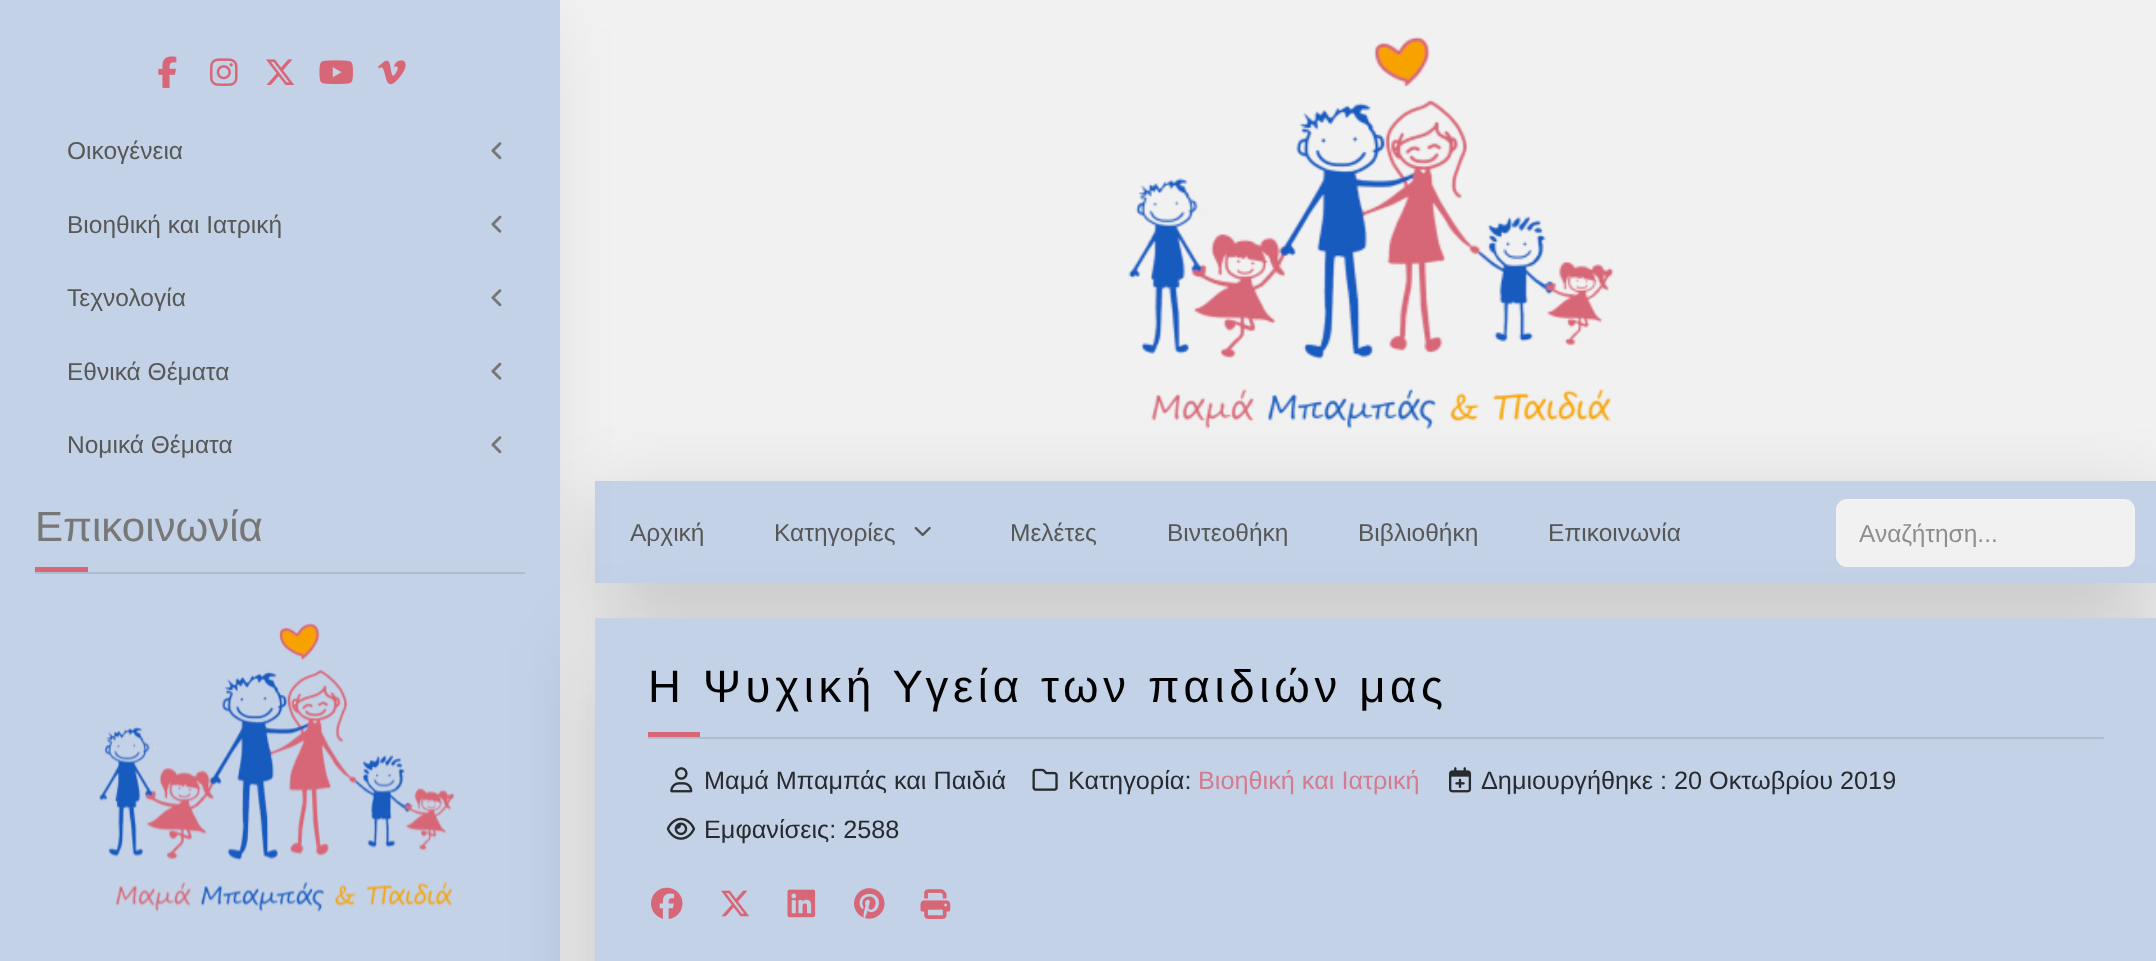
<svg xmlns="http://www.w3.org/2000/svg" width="2156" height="961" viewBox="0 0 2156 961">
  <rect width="100%" height="100%" fill="rgb(241,241,241)"/>
  <rect x="595" y="509" width="1561" height="102" fill="rgba(0,0,0,0.18)" filter="blur(42px)"/>
  <rect x="595" y="481" width="1561" height="102" fill="rgb(196,210,232)"/>
  <rect x="0" y="28" width="525" height="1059" fill="rgba(0,0,0,0.18)" filter="blur(42px)"/>
  <rect x="0" y="0" width="560" height="961" fill="rgb(196,210,232)"/>
  <image x="158" y="56" width="19" height="32" href="pic1.png"/>
  <image x="210" y="58" width="28" height="28" href="pic2.png"/>
  <image x="266" y="59" width="28" height="26" href="pic3.png"/>
  <image x="319" y="60" width="34" height="24" href="pic4.png"/>
  <image x="378" y="60" width="28" height="25" href="pic5.png"/>
  <text x="67" y="159" font-family="Liberation Sans" font-size="24.5" fill="rgb(87,87,87)">Οικογένεια</text>
  <image x="491" y="142" width="11" height="18" href="pic6.png"/>
  <text x="67" y="233" font-family="Liberation Sans" font-size="24.5" fill="rgb(87,87,87)">Βιοηθική και Ιατρική</text>
  <image x="491" y="215" width="11" height="18" href="pic7.png"/>
  <text x="67" y="306" font-family="Liberation Sans" font-size="24.5" fill="rgb(87,87,87)">Τεχνολογία</text>
  <image x="491" y="289" width="11" height="18" href="pic6.png"/>
  <text x="67" y="380" font-family="Liberation Sans" font-size="24.5" fill="rgb(87,87,87)">Εθνικά Θέματα</text>
  <image x="491" y="362" width="11" height="18" href="pic7.png"/>
  <text x="67" y="453" font-family="Liberation Sans" font-size="24.5" fill="rgb(87,87,87)">Νομικά Θέματα</text>
  <image x="491" y="436" width="11" height="18" href="pic6.png"/>
  <rect x="35" y="572" width="490" height="2" fill="rgb(176,189,209)"/>
  <text x="35" y="541" font-family="Liberation Sans" font-size="42" fill="rgb(119,119,119)">Επικοινωνία</text>
  <rect x="35" y="567" width="53" height="5" fill="rgb(215,103,119)"/>
  <image x="99" y="623" width="356" height="289" href="pic8.png"/>
  <image x="1128" y="36" width="486" height="394" href="pic9.png"/>
  <g font-family="Liberation Sans" font-size="24.5" fill="rgb(87,87,87)">
    <text x="630" y="541">Αρχική</text>
    <text x="774" y="541">Κατηγορίες</text>
  </g>
  <image x="914" y="526" width="17" height="11" href="pic10.png"/>
  <g font-family="Liberation Sans" font-size="24.5" fill="rgb(87,87,87)">
    <text x="1010" y="541">Μελέτες</text>
    <text x="1167" y="541">Βιντεοθήκη</text>
    <text x="1358" y="541">Βιβλιοθήκη</text>
    <text x="1548" y="541">Επικοινωνία</text>
  </g>
  <rect x="1837" y="500" width="297" height="66" rx="10" fill="rgb(241,241,241)" stroke="rgb(242,242,242)" stroke-width="2"/>
  <text x="1859" y="542" font-family="Liberation Sans" font-size="24.5" fill="rgb(142,142,142)">Αναζήτηση...</text>
  <rect x="595" y="646" width="1561" height="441" fill="rgba(0,0,0,0.18)" filter="blur(42px)"/>
  <rect x="595" y="618" width="1561" height="343" fill="rgb(196,210,232)"/>
  <rect x="648" y="737" width="1456" height="2" fill="rgb(176,189,209)"/>
  <text x="648" y="702" font-family="Liberation Sans" font-size="45.5" letter-spacing="4.7" fill="rgb(0,0,0)">Η Ψυχική Υγεία των παιδιών μας</text>
  <rect x="648" y="732" width="52" height="5" fill="rgb(215,103,119)"/>
  <image x="670" y="767" width="23" height="26" href="pic11.png"/>
  <text x="704" y="789" font-family="Liberation Sans" font-size="25.25" fill="rgb(39,42,46)">Μαμά Μπαμπάς και Παιδιά</text>
  <image x="1032" y="768" width="26" height="23" href="pic12.png"/>
  <text x="1068" y="789" font-family="Liberation Sans" font-size="25.25" fill="rgb(39,42,46)">Κατηγορία:</text>
  <text x="1198" y="789" font-family="Liberation Sans" font-size="25.25" fill="rgb(211,124,142)">Βιοηθική και Ιατρική</text>
  <image x="1449" y="767" width="23" height="26" href="pic13.png"/>
  <text x="1481" y="789" font-family="Liberation Sans" font-size="25.25" fill="rgb(39,42,46)">Δημιουργήθηκε : 20 Οκτωβρίου 2019</text>
  <image x="666" y="817" width="30" height="23" href="pic14.png"/>
  <text x="704" y="838" font-family="Liberation Sans" font-size="25.25" fill="rgb(39,42,46)">Εμφανίσεις: 2588</text>
  <image x="651" y="887" width="32" height="32" href="pic15.png"/>
  <image x="721" y="890" width="28" height="27" href="pic16.png"/>
  <image x="787" y="889" width="29" height="29" href="pic17.png"/>
  <image x="854" y="888" width="31" height="31" href="pic18.png"/>
  <image x="920" y="889" width="31" height="30" href="pic19.png"/>
</svg>
